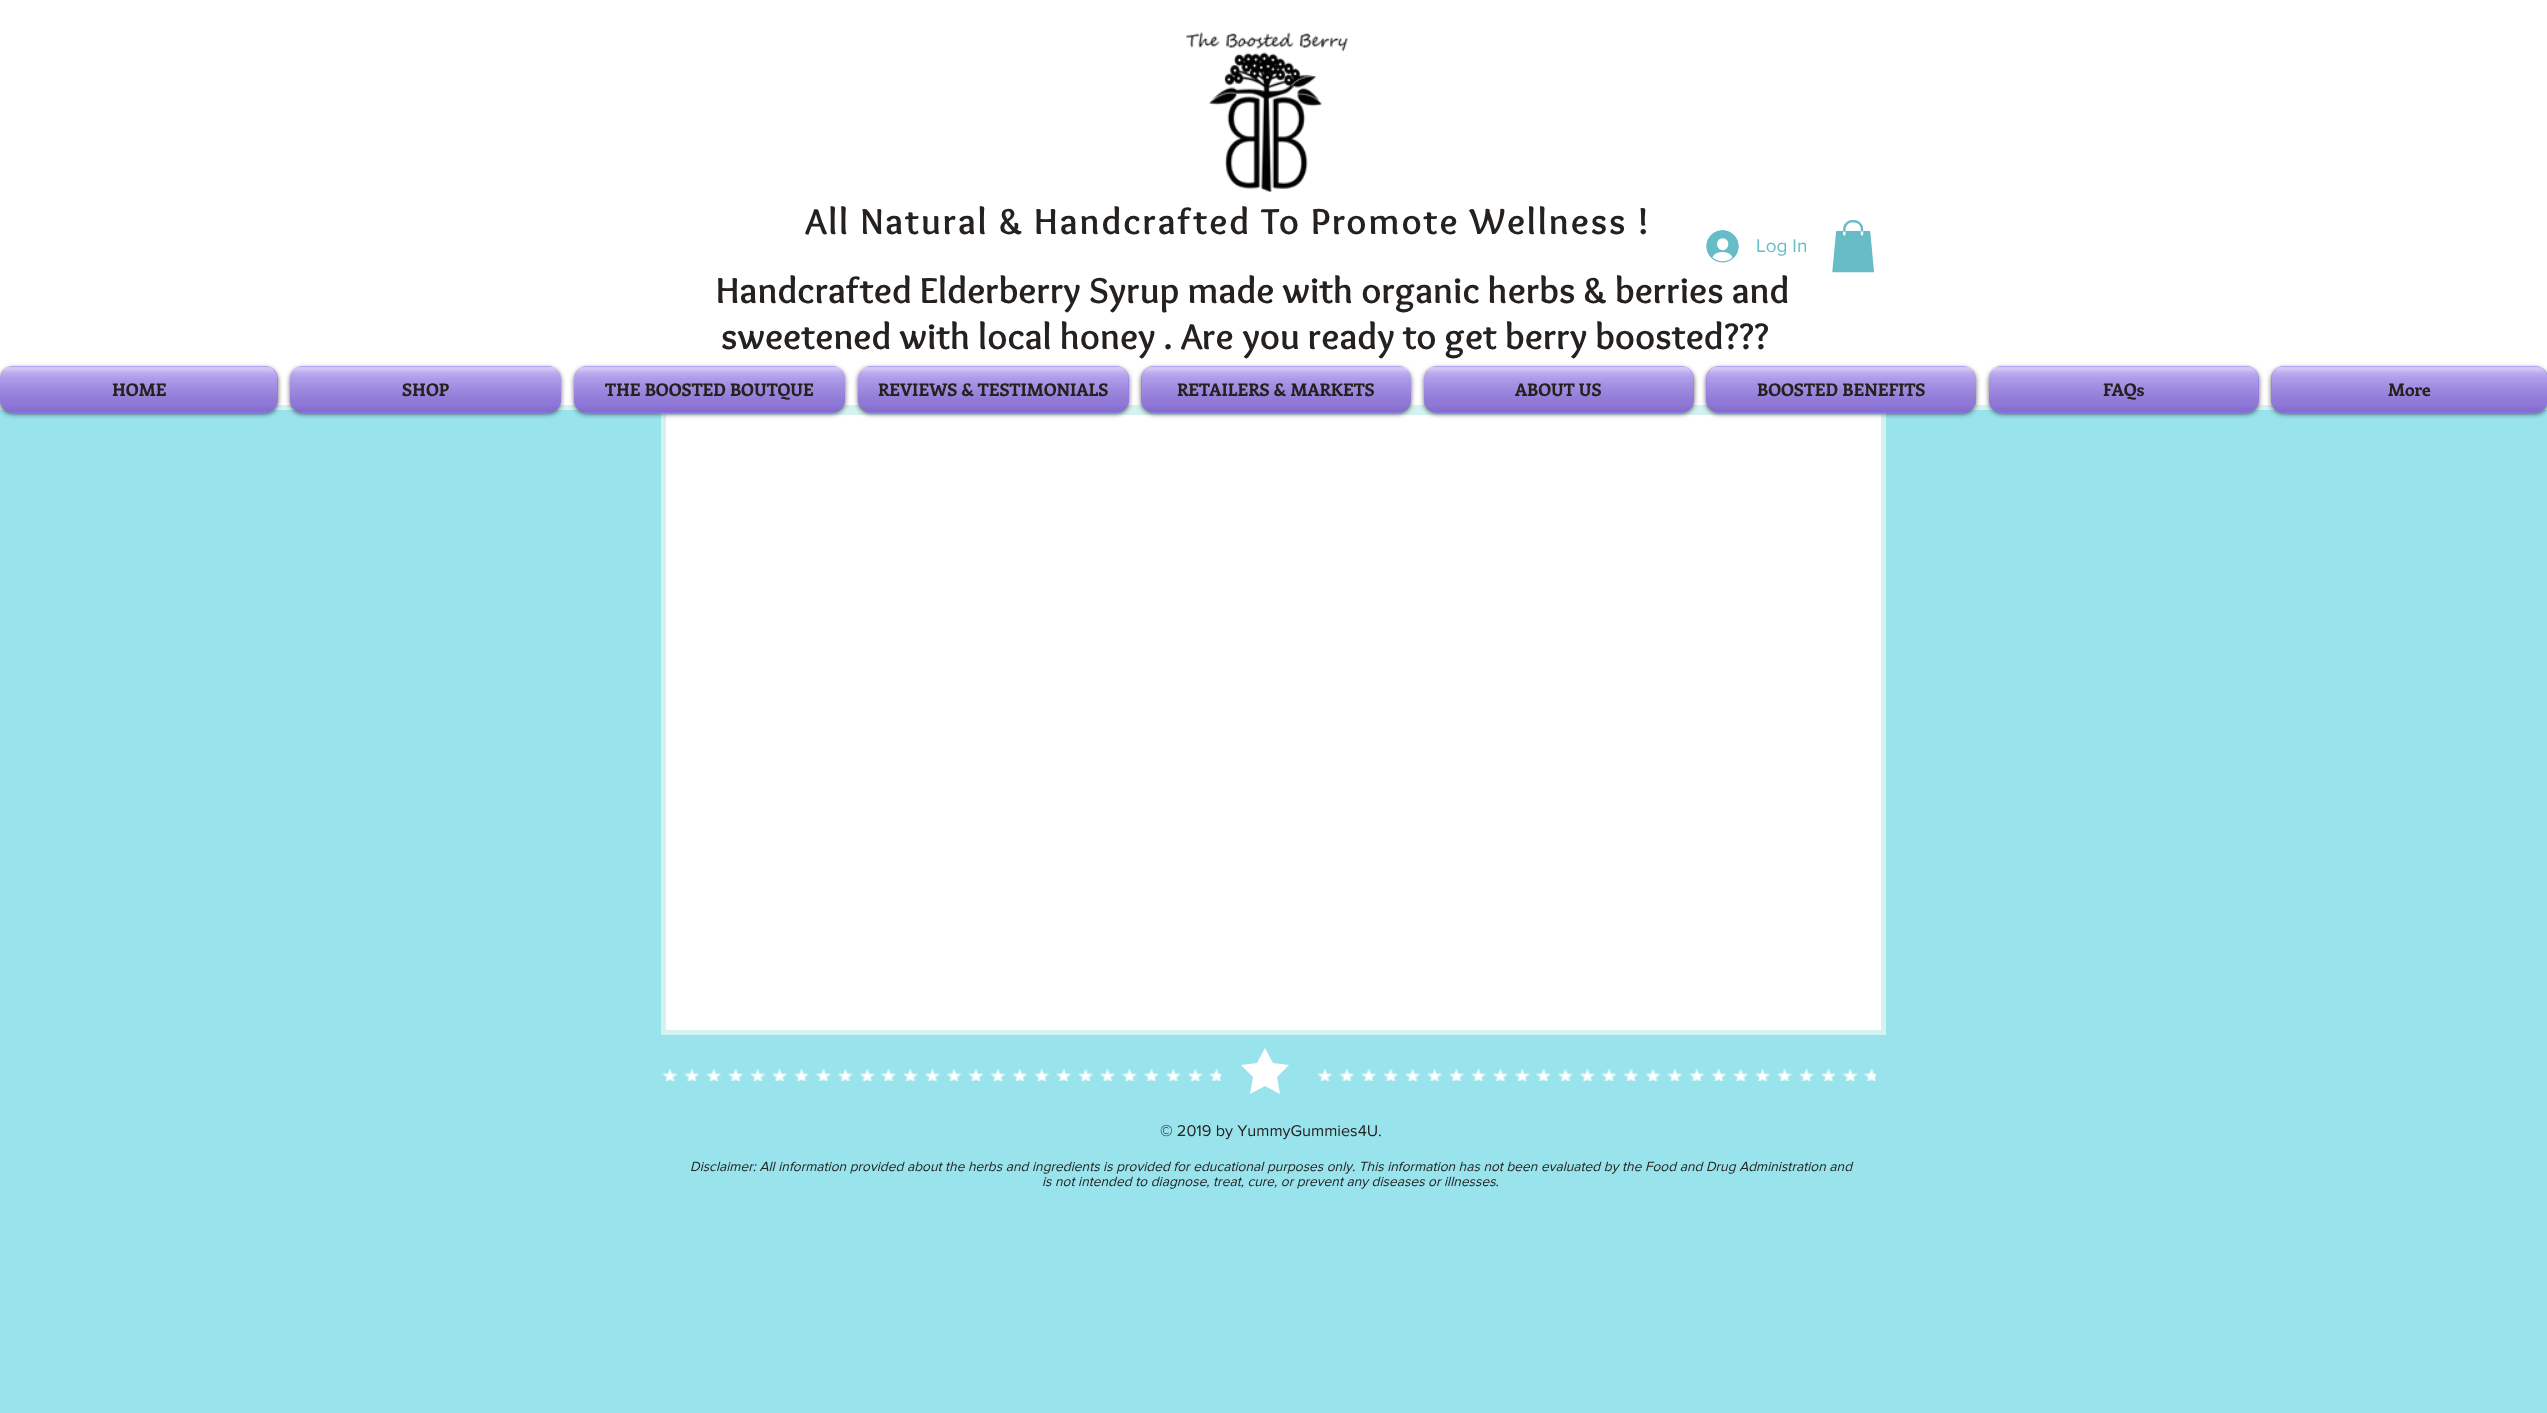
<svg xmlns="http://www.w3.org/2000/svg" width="2547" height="1413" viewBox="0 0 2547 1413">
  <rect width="100%" height="100%" fill="rgb(153,227,236)"/>
  <rect x="0" y="0" width="2547" height="405" fill="rgb(255,255,255)"/>
  <rect x="0" y="405" width="2547" height="5" fill="rgb(211,242,240)"/>
  <image x="1186" y="32" width="162" height="160" href="pic1.png"/>
  <text x="805" y="234" font-family="Overlock" font-size="37.5" font-weight="bold" letter-spacing="1.9" fill="rgb(36,33,31)">All Natural &amp; Handcrafted To Promote Wellness !</text>
  <image x="1706" y="230" width="33" height="33" href="pic2.png"/>
  <text x="1756" y="252" font-family="'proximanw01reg'" font-size="19" fill="rgb(103,189,199)">Log In</text>
  <image x="1832" y="220" width="42" height="53" href="pic3.png"/>
  <g font-family="Overlock" font-size="37.5" font-weight="bold" fill="rgb(36,33,31)">
    <text x="716" y="303">Handcrafted Elderberry Syrup made with organic herbs &amp; berries and</text>
    <text x="721" y="349">sweetened with local honey . Are you ready to get berry boosted???</text>
  </g>
  <rect x="0" y="368" width="278" height="46" rx="13" fill="rgba(0,0,0,0.6)" filter="blur(2.5px)"/>
  <rect x="0" y="366" width="278" height="47" rx="13" fill="rgb(148,119,237)"/>
  <image x="0" y="366" width="278" height="46" href="pic4.png"/>
  <image x="0" y="371" width="278" height="42" href="pic5.png"/>
  <text x="112" y="396" font-family="Enriqueta" font-size="17.5" font-weight="bold" fill="rgb(36,33,31)">HOME</text>
  <rect x="290" y="368" width="271" height="46" rx="13" fill="rgba(0,0,0,0.6)" filter="blur(2.5px)"/>
  <rect x="290" y="366" width="271" height="47" rx="13" fill="rgb(148,119,237)"/>
  <image x="290" y="366" width="271" height="46" href="pic6.png"/>
  <image x="290" y="371" width="271" height="42" href="pic7.png"/>
  <text x="402" y="396" font-family="Enriqueta" font-size="17.5" font-weight="bold" fill="rgb(36,33,31)">SHOP</text>
  <rect x="663.5" y="412.5" width="1220" height="620" fill="rgb(255,255,255)" stroke="rgb(211,242,240)" stroke-width="5"/>
  <rect x="574" y="368" width="271" height="46" rx="13" fill="rgba(0,0,0,0.6)" filter="blur(2.5px)"/>
  <rect x="574" y="366" width="271" height="47" rx="13" fill="rgb(148,119,237)"/>
  <image x="574" y="366" width="271" height="46" href="pic8.png"/>
  <image x="574" y="371" width="271" height="42" href="pic9.png"/>
  <text x="605" y="396" font-family="Enriqueta" font-size="17.5" font-weight="bold" fill="rgb(36,33,31)">THE BOOSTED BOUTQUE</text>
  <rect x="858" y="368" width="271" height="46" rx="13" fill="rgba(0,0,0,0.6)" filter="blur(2.5px)"/>
  <rect x="858" y="366" width="271" height="47" rx="13" fill="rgb(148,119,237)"/>
  <image x="858" y="366" width="271" height="46" href="pic10.png"/>
  <image x="857" y="371" width="272" height="42" href="pic11.png"/>
  <text x="878" y="396" font-family="Enriqueta" font-size="17.5" font-weight="bold" fill="rgb(36,33,31)">REVIEWS &amp; TESTIMONIALS</text>
  <rect x="1141" y="368" width="270" height="46" rx="13" fill="rgba(0,0,0,0.6)" filter="blur(2.5px)"/>
  <rect x="1141" y="366" width="270" height="47" rx="13" fill="rgb(148,119,237)"/>
  <image x="1141" y="366" width="270" height="46" href="pic12.png"/>
  <image x="1141" y="371" width="270" height="42" href="pic13.png"/>
  <text x="1177" y="396" font-family="Enriqueta" font-size="17.5" font-weight="bold" fill="rgb(36,33,31)">RETAILERS &amp; MARKETS</text>
  <rect x="1424" y="368" width="270" height="46" rx="13" fill="rgba(0,0,0,0.6)" filter="blur(2.5px)"/>
  <rect x="1424" y="366" width="270" height="47" rx="13" fill="rgb(148,119,237)"/>
  <image x="1424" y="366" width="270" height="46" href="pic14.png"/>
  <image x="1424" y="371" width="270" height="42" href="pic15.png"/>
  <text x="1515" y="396" font-family="Enriqueta" font-size="17.5" font-weight="bold" fill="rgb(36,33,31)">ABOUT US</text>
  <rect x="1706" y="368" width="270" height="46" rx="13" fill="rgba(0,0,0,0.6)" filter="blur(2.5px)"/>
  <rect x="1706" y="366" width="270" height="47" rx="13" fill="rgb(148,119,237)"/>
  <image x="1706" y="366" width="270" height="46" href="pic16.png"/>
  <image x="1706" y="371" width="270" height="42" href="pic17.png"/>
  <text x="1757" y="396" font-family="Enriqueta" font-size="17.5" font-weight="bold" fill="rgb(36,33,31)">BOOSTED BENEFITS</text>
  <rect x="1989" y="368" width="270" height="46" rx="13" fill="rgba(0,0,0,0.6)" filter="blur(2.5px)"/>
  <rect x="1989" y="366" width="270" height="47" rx="13" fill="rgb(148,119,237)"/>
  <image x="1989" y="366" width="270" height="46" href="pic18.png"/>
  <image x="1989" y="371" width="270" height="42" href="pic19.png"/>
  <text x="2103" y="396" font-family="Enriqueta" font-size="17.5" font-weight="bold" fill="rgb(36,33,31)">FAQs</text>
  <rect x="2271" y="368" width="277" height="46" rx="13" fill="rgba(0,0,0,0.6)" filter="blur(2.5px)"/>
  <rect x="2271" y="366" width="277" height="47" rx="13" fill="rgb(148,119,237)"/>
  <image x="2271" y="366" width="276" height="46" href="pic20.png"/>
  <image x="2271" y="371" width="276" height="42" href="pic21.png"/>
  <text x="2388" y="396" font-family="Enriqueta" font-size="17.5" font-weight="bold" fill="rgb(36,33,31)">More</text>
  <image x="661" y="1069" width="561" height="13" href="pic22.png"/>
  <path d="M1265 1048L1273 1063L1289 1065L1277 1077L1280 1094L1265 1086L1250 1094L1253 1077L1241 1065L1257 1063Z" fill="rgb(255,255,255)"/>
  <image x="1316" y="1069" width="561" height="13" href="pic23.png"/>
  <text x="1160" y="1136" font-family="'proximanw01reg'" font-size="16.25" fill="rgb(36,33,31)">© 2019 by YummyGummies4U.</text>
  <g font-family="'proximanw01reg'" font-size="13.75" font-style="italic" fill="rgb(36,33,31)">
    <text x="690" y="1171">Disclaimer: All information provided about the herbs and ingredients is provided for educational purposes only. This information has not been evaluated by the Food and Drug Administration and</text>
    <text x="1042" y="1186">is not intended to diagnose, treat, cure, or prevent any diseases or illnesses.</text>
  </g>
</svg>
